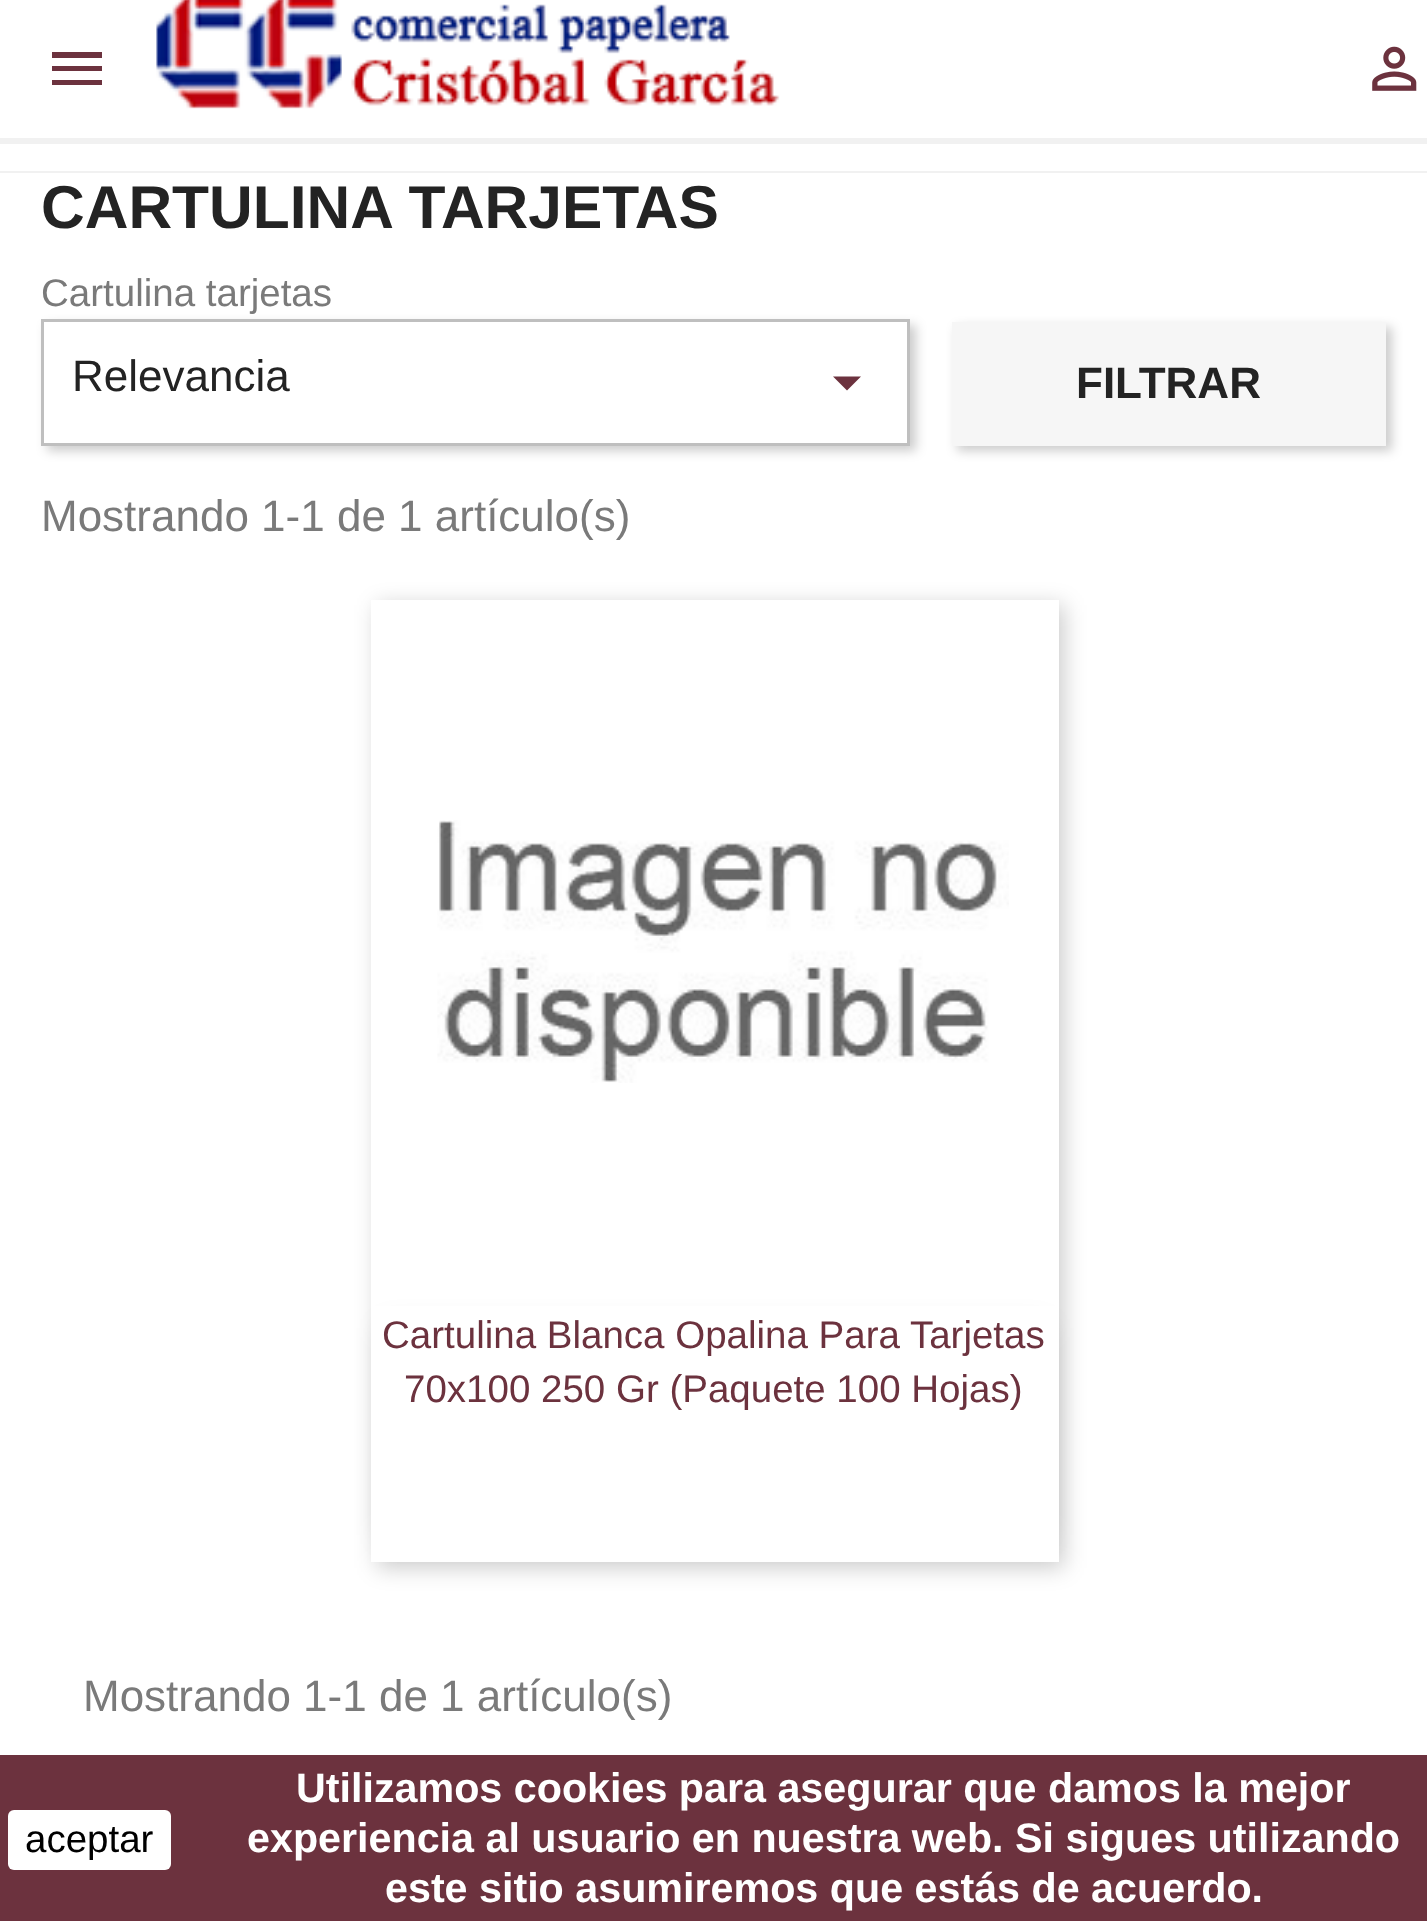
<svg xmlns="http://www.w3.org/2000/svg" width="1427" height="1921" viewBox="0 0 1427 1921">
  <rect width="100%" height="100%" fill="rgb(255,255,255)"/>
  <rect x="0" y="138" width="1427" height="6" fill="rgb(241,241,241)"/>
  <path d="M52 52H102V58H52ZM52 71V66H102V71ZM52 85V80H102V85Z" fill="rgb(108,50,62)"/>
  <image x="156" y="0" width="624" height="109" href="pic1.png"/>
  <image x="1372" y="46" width="45" height="45" href="pic2.png"/>
  <rect x="0" y="171" width="1427" height="2" fill="rgb(241,241,241)"/>
  <text x="41" y="228" font-family="Liberation Sans" font-size="60.5" font-weight="bold" fill="rgb(35,35,35)">CARTULINA TARJETAS</text>
  <text x="41" y="306" font-family="Liberation Sans" font-size="38.5" fill="rgb(122,122,122)">Cartulina tarjetas</text>
  <rect x="47" y="325" width="869" height="126" fill="rgba(0,0,0,0.2)" filter="blur(5.5px)"/>
  <rect x="42.5" y="320.5" width="866" height="124" fill="rgb(255,255,255)" stroke="rgb(191,191,191)" stroke-width="3"/>
  <text x="72" y="391" font-family="Liberation Sans" font-size="44" fill="rgb(35,35,35)">Relevancia</text>
  <path d="M833 376.5H861L847 390.5Z" fill="rgb(108,50,62)"/>
  <rect x="957" y="327" width="435" height="124" fill="rgba(0,0,0,0.2)" filter="blur(5.5px)"/>
  <rect x="952" y="322" width="434" height="124" fill="rgb(246,246,246)"/>
  <text x="1076" y="398" font-family="Liberation Sans" font-size="44" font-weight="bold" fill="rgb(35,35,35)">FILTRAR</text>
  <text x="41" y="531" font-family="Liberation Sans" font-size="44" fill="rgb(122,122,122)">Mostrando 1-1 de 1 artículo(s)</text>
  <rect x="377" y="605" width="687" height="963" fill="rgba(0,0,0,0.2)" filter="blur(11px)"/>
  <rect x="371" y="600" width="688" height="706" fill="rgb(255,255,255)"/>
  <image x="437" y="820" width="572" height="263" href="pic3.png"/>
  <rect x="385" y="1328" width="660" height="207" fill="rgba(0,0,0,0.2)" filter="blur(14px)"/>
  <rect x="371" y="1306" width="688" height="256" fill="rgb(255,255,255)"/>
  <g font-family="Liberation Sans" font-size="38.5" fill="rgb(108,50,62)">
    <text x="382" y="1348">Cartulina Blanca Opalina Para Tarjetas</text>
    <text x="404" y="1402">70x100 250 Gr (Paquete 100 Hojas)</text>
  </g>
  <text x="83" y="1711" font-family="Liberation Sans" font-size="44" fill="rgb(122,122,122)">Mostrando 1-1 de 1 artículo(s)</text>
  <rect x="0" y="1755" width="1427" height="166" fill="rgb(108,50,62)"/>
  <rect x="8" y="1810" width="163" height="60" rx="6" fill="rgb(255,255,255)"/>
  <text x="25" y="1852" font-family="Liberation Sans" font-size="38.5" fill="rgb(0,0,0)">aceptar</text>
  <g font-family="Liberation Sans" font-size="41.25" font-weight="bold" fill="rgb(255,255,255)">
    <text x="296" y="1802">Utilizamos cookies para asegurar que damos la mejor</text>
    <text x="247" y="1852">experiencia al usuario en nuestra web. Si sigues utilizando</text>
    <text x="385" y="1902">este sitio asumiremos que estás de acuerdo.</text>
  </g>
</svg>
